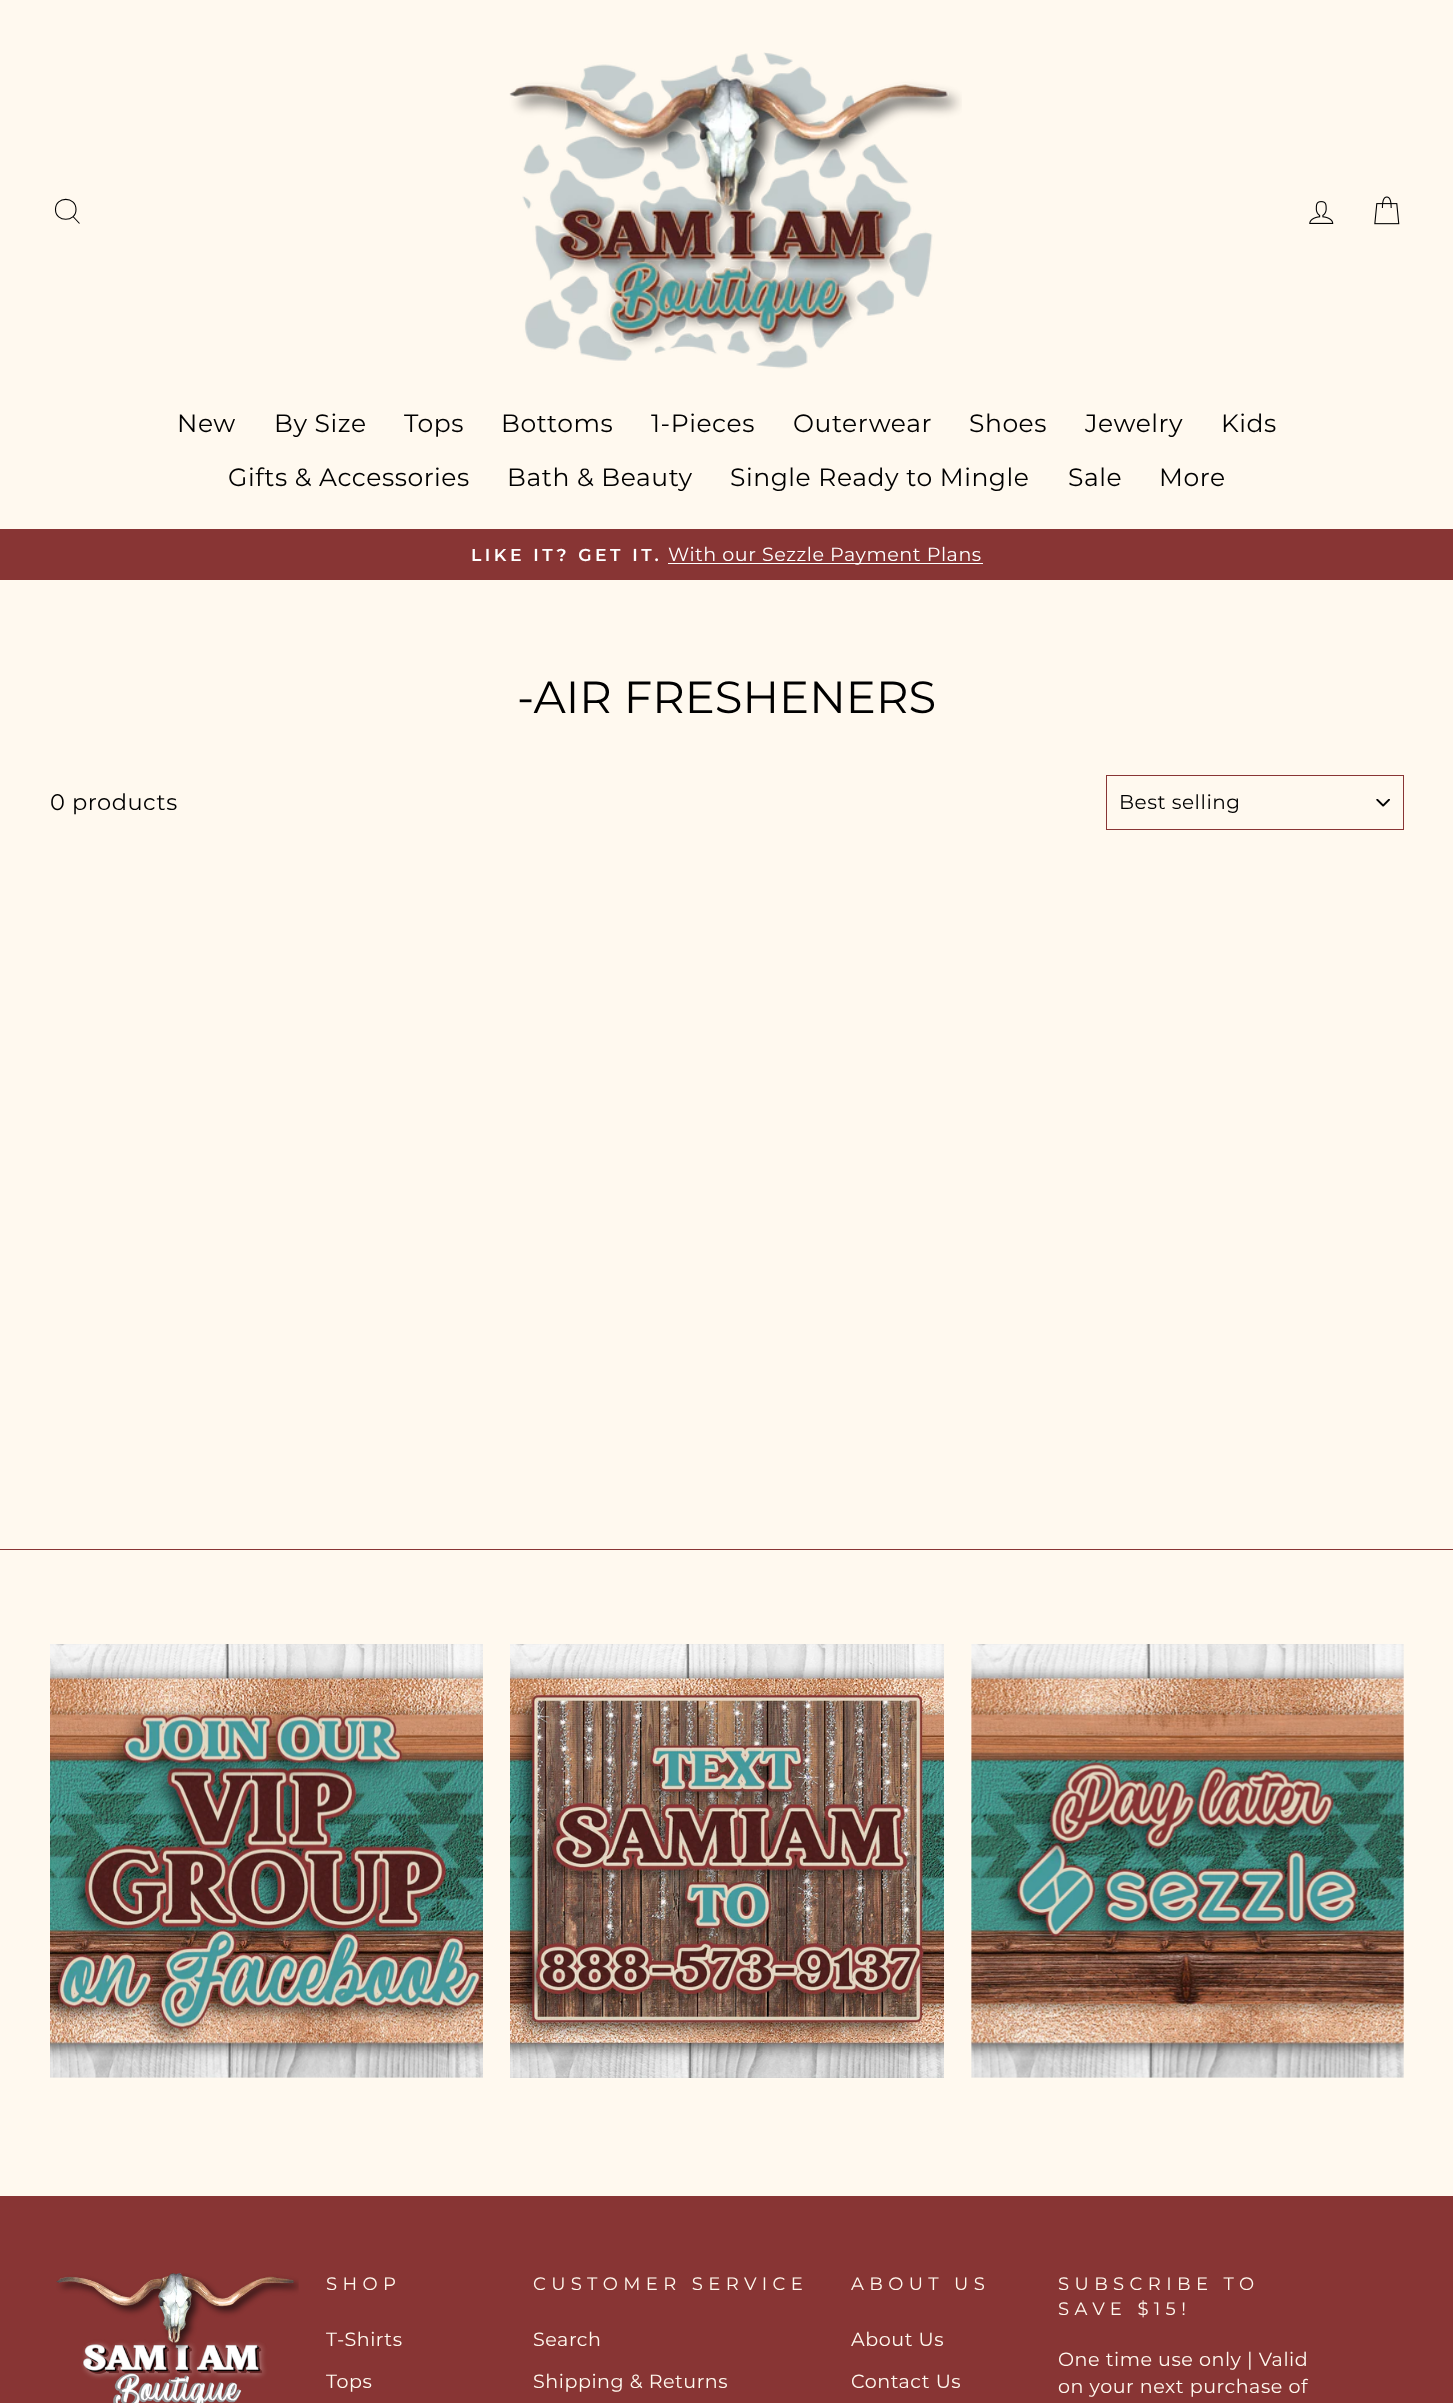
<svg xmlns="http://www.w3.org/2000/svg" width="1453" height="2403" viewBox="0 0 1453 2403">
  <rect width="100%" height="100%" fill="rgb(255,249,239)"/>
  <rect x="0" y="529" width="1453" height="51" fill="rgb(136,53,52)"/>
  <rect x="0" y="0" width="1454" height="529" fill="rgba(0,0,0,0.2)" filter="blur(0.5px)"/>
  <rect x="0" y="0" width="1453" height="529" fill="rgb(255,249,239)"/>
  <path d="M76 209.5C76 222.5 55.5 222.5 55.5 209.5C55.5 196 76 196 76 209.5ZM79.5 223.5L73 216.5" fill="none" stroke="rgb(0,0,0)" stroke-width="1.1"/>
  <image x="509" y="52" width="453" height="317" href="pic1.png"/>
  <image x="1309" y="201" width="25" height="23" href="pic2.png"/>
  <image x="1374" y="196" width="26" height="29" href="pic3.png"/>
  <g font-family="Montserrat" font-size="25" letter-spacing="0.55" fill="rgb(0,0,0)">
    <text x="177" y="432">New</text>
    <text x="274" y="432">By Size</text>
    <text x="404" y="432">Tops</text>
    <text x="501" y="432">Bottoms</text>
    <text x="651" y="432">1-Pieces</text>
    <text x="793" y="432">Outerwear</text>
    <text x="969" y="432">Shoes</text>
    <text x="1085" y="432">Jewelry</text>
    <text x="1221" y="432">Kids</text>
    <text x="228" y="486">Gifts &amp; Accessories</text>
    <text x="507" y="486">Bath &amp; Beauty</text>
    <text x="730" y="486">Single Ready to Mingle</text>
    <text x="1068" y="486">Sale</text>
    <text x="1159" y="486">More</text>
  </g>
  <text x="471" y="561" font-family="Montserrat" font-size="17.25" font-weight="600" letter-spacing="3.5" fill="rgb(255,255,255)">LIKE IT? GET IT.</text>
  <rect x="668" y="563" width="315" height="1" fill="rgb(255,255,255)"/>
  <text x="668" y="561" font-family="Montserrat" font-size="19.1" letter-spacing="0.55" fill="rgb(255,255,255)">With our Sezzle Payment Plans</text>
  <text x="517" y="713" font-family="Montserrat" font-size="45" fill="rgb(0,0,0)">-AIR FRESHENERS</text>
  <text x="50" y="810" font-family="Montserrat" font-size="22.5" letter-spacing="0.55" fill="rgb(0,0,0)">0 products</text>
  <image x="1376" y="799" width="14" height="8" href="pic4.png"/>
  <rect x="1106.5" y="775.5" width="297" height="54" fill="none" stroke="rgb(136,53,52)"/>
  <text x="1119" y="809" font-family="Montserrat" font-size="20" letter-spacing="0.5" fill="rgb(0,0,0)">Best selling</text>
  <rect x="0" y="1549" width="1453" height="1" fill="rgb(136,53,52)"/>
  <image x="50" y="1644" width="433" height="434" href="pic5.png"/>
  <image x="510" y="1644" width="434" height="434" href="pic6.png"/>
  <image x="971" y="1644" width="433" height="434" href="pic7.png"/>
  <rect x="0" y="2196" width="1453" height="207" fill="rgb(136,53,52)"/>
  <image x="56" y="2273" width="243" height="130" href="pic8.png"/>
  <text x="326" y="2290" font-family="Montserrat" font-size="18" letter-spacing="5.4" fill="rgb(255,249,239)">SHOP</text>
  <g font-family="Montserrat" font-size="19.1" letter-spacing="0.55" fill="rgb(255,249,239)">
    <text x="326" y="2346">T-Shirts</text>
    <text x="326" y="2388">Tops</text>
  </g>
  <text x="533" y="2290" font-family="Montserrat" font-size="18" letter-spacing="5.4" fill="rgb(255,249,239)">CUSTOMER SERVICE</text>
  <g font-family="Montserrat" font-size="19.1" letter-spacing="0.55" fill="rgb(255,249,239)">
    <text x="533" y="2346">Search</text>
    <text x="533" y="2388">Shipping &amp; Returns</text>
  </g>
  <text x="851" y="2290" font-family="Montserrat" font-size="18" letter-spacing="5.4" fill="rgb(255,249,239)">ABOUT US</text>
  <g font-family="Montserrat" font-size="19.1" letter-spacing="0.55" fill="rgb(255,249,239)">
    <text x="851" y="2346">About Us</text>
    <text x="851" y="2388">Contact Us</text>
  </g>
  <g font-family="Montserrat" font-size="18" letter-spacing="5.4" fill="rgb(255,249,239)">
    <text>
      <tspan x="1058" y="2290">SUBSCRIBE TO</tspan>
      <tspan x="1058" y="2315">SAVE $15!</tspan>
    </text>
  </g>
  <g font-family="Montserrat" font-size="19.1" letter-spacing="0.55" fill="rgb(255,249,239)">
    <text>
      <tspan x="1058" y="2366">One time use only | Valid</tspan>
      <tspan x="1058" y="2393">on your next purchase of</tspan>
    </text>
  </g>
</svg>
